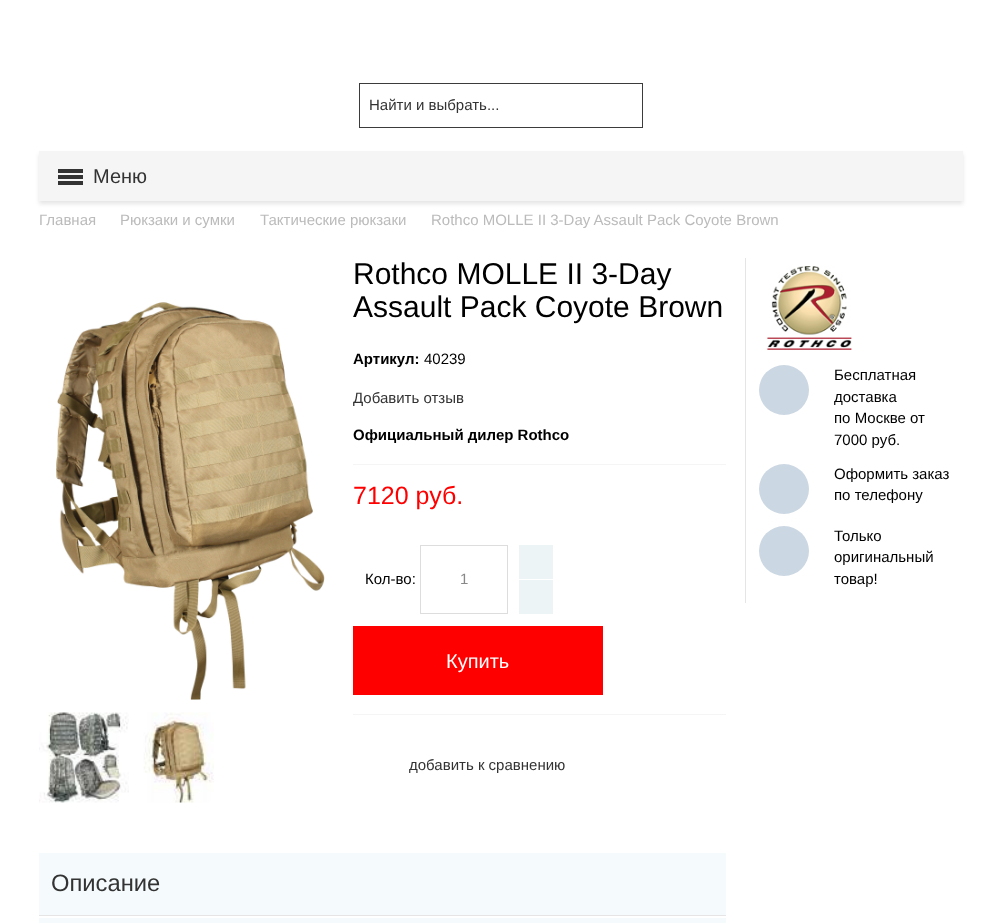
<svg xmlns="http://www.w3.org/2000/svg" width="1001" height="923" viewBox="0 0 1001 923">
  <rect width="100%" height="100%" fill="rgb(255,255,255)"/>
  <rect x="359.5" y="83.5" width="283" height="44" fill="none" stroke="rgb(59,59,59)"/>
  <text x="369" y="110" font-family="Liberation Sans" font-size="15" fill="rgb(51,51,51)">Найти и выбрать...</text>
  <rect x="39" y="154" width="924" height="50" fill="rgba(0,0,0,0.1)" filter="blur(2px)"/>
  <rect x="39" y="151" width="924" height="50" fill="rgb(245,245,245)"/>
  <rect x="58" y="169" width="25" height="4" fill="rgb(51,51,51)"/>
  <rect x="58" y="175" width="25" height="4" fill="rgb(51,51,51)"/>
  <rect x="58" y="181" width="25" height="4" fill="rgb(51,51,51)"/>
  <text x="93" y="183" font-family="Liberation Sans" font-size="20" fill="rgb(51,51,51)">Меню</text>
  <g font-family="Liberation Sans" font-size="15" fill="rgb(187,187,187)">
    <text x="39" y="225">Главная</text>
    <text x="120" y="225">Рюкзаки и сумки</text>
    <text x="260" y="225">Тактические рюкзаки</text>
    <text x="431" y="225">Rothco MOLLE II 3-Day Assault Pack Coyote Brown</text>
  </g>
  <image x="56" y="302" width="269" height="398" href="pic1.png"/>
  <image x="39" y="712" width="90" height="91" href="pic2.png"/>
  <image x="143" y="712" width="71" height="91" href="pic3.png"/>
  <g font-family="Liberation Sans" font-size="30" fill="rgb(0,0,0)">
    <text>
      <tspan x="353" y="284">Rothco MOLLE II 3-Day</tspan>
      <tspan x="353" y="317">Assault Pack Coyote Brown</tspan>
    </text>
  </g>
  <text x="353" y="364" font-family="Liberation Sans" font-size="15" font-weight="bold" fill="rgb(0,0,0)">Артикул:</text>
  <text x="424" y="364" font-family="Liberation Sans" font-size="15" fill="rgb(0,0,0)">40239</text>
  <text x="353" y="403" font-family="Liberation Sans" font-size="15" fill="rgb(51,51,51)">Добавить отзыв</text>
  <text x="353" y="440" font-family="Liberation Sans" font-size="15" font-weight="bold" fill="rgb(0,0,0)">Официальный дилер Rothco</text>
  <rect x="353" y="464" width="373" height="1" fill="rgb(245,245,245)"/>
  <text x="353" y="504" font-family="Liberation Sans" font-size="25" fill="rgb(255,0,0)">7120 руб.</text>
  <rect x="353" y="714" width="373" height="1" fill="rgb(245,245,245)"/>
  <text x="365" y="584" font-family="Liberation Sans" font-size="15" fill="rgb(0,0,0)">Кол-во:</text>
  <rect x="420.5" y="545.5" width="87" height="68" fill="none" stroke="rgb(221,221,221)"/>
  <text x="460" y="584" font-family="Liberation Sans" font-size="15" fill="rgb(136,136,136)">1</text>
  <rect x="519" y="545" width="34" height="34" fill="rgb(237,244,246)"/>
  <rect x="519" y="580" width="34" height="34" fill="rgb(237,244,246)"/>
  <rect x="353" y="626" width="250" height="69" fill="rgb(255,0,0)"/>
  <text x="446" y="668" font-family="Liberation Sans" font-size="20" fill="rgb(255,255,255)">Купить</text>
  <text x="409" y="770" font-family="Liberation Sans" font-size="15" fill="rgb(51,51,51)">добавить к сравнению</text>
  <rect x="745" y="258" width="1" height="345" fill="rgb(229,229,229)"/>
  <image x="766" y="266" width="86" height="84" href="pic4.png"/>
  <circle cx="784" cy="390" r="25" fill="rgb(203,215,226)"/>
  <g font-family="Liberation Sans" font-size="15" fill="rgb(0,0,0)">
    <text>
      <tspan x="834" y="380">Бесплатная</tspan>
      <tspan x="834" y="402">доставка</tspan>
      <tspan x="834" y="423">по Москве от</tspan>
      <tspan x="834" y="445">7000 руб.</tspan>
    </text>
  </g>
  <circle cx="784" cy="489" r="25" fill="rgb(203,215,226)"/>
  <g font-family="Liberation Sans" font-size="15" fill="rgb(0,0,0)">
    <text>
      <tspan x="834" y="479">Оформить заказ</tspan>
      <tspan x="834" y="500">по телефону</tspan>
    </text>
  </g>
  <circle cx="784" cy="551" r="25" fill="rgb(203,215,226)"/>
  <g font-family="Liberation Sans" font-size="15" fill="rgb(0,0,0)">
    <text>
      <tspan x="834" y="541">Только</tspan>
      <tspan x="834" y="562">оригинальный</tspan>
      <tspan x="834" y="584">товар!</tspan>
    </text>
  </g>
  <rect x="39" y="853" width="687" height="62" fill="rgb(245,250,252)"/>
  <rect x="39" y="915" width="687" height="1" fill="rgb(229,229,229)"/>
  <text x="51" y="891" font-family="Liberation Sans" font-size="23.75" fill="rgb(51,51,51)">Описание</text>
  <rect x="39" y="918" width="687" height="5" fill="rgb(245,250,252)"/>
</svg>
